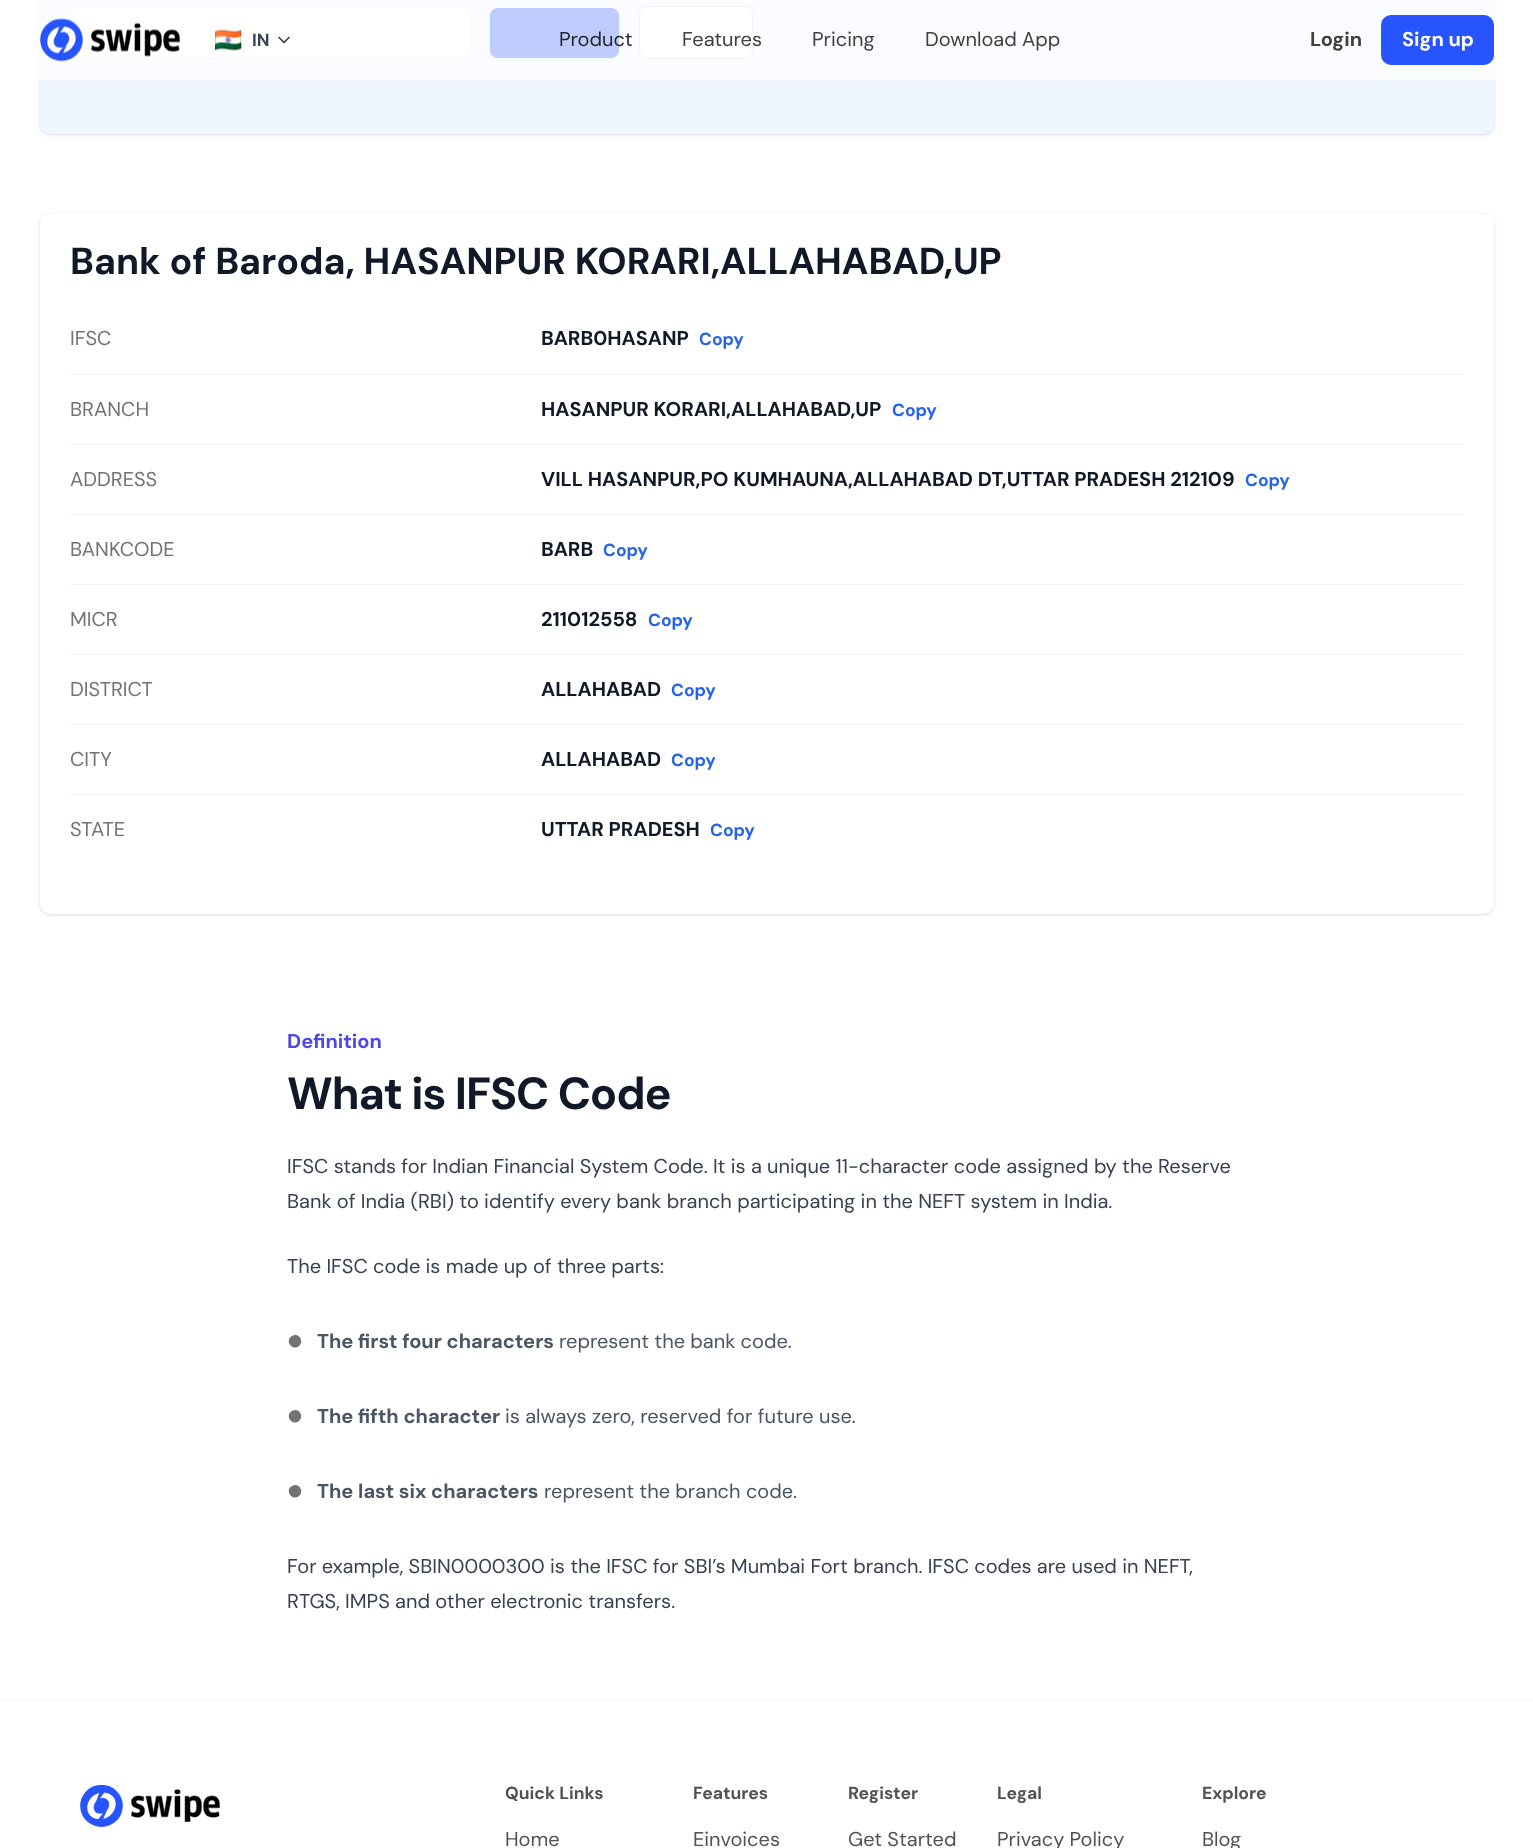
<svg xmlns="http://www.w3.org/2000/svg" width="1533" height="1848" viewBox="0 0 1533 1848">
  <rect width="100%" height="100%" fill="rgb(255,255,255)"/>
  <rect x="41" y="-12" width="1452" height="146" rx="9" fill="rgba(0,0,0,0.1)" filter="blur(1px)"/>
  <rect x="40" y="-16" width="1454" height="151" rx="10" fill="rgba(0,0,0,0.1)" filter="blur(2px)"/>
  <rect x="40" y="-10" width="1454" height="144" rx="10" fill="rgb(239,246,255)"/>
  <rect x="70" y="9" width="400" height="50" rx="8" fill="rgba(0,0,0,0.05)" filter="blur(1px)"/>
  <rect x="70" y="8" width="400" height="50" rx="8" fill="rgb(255,255,255)"/>
  <rect x="491" y="10" width="127" height="48" rx="6" fill="rgba(0,0,0,0.1)" filter="blur(1px)"/>
  <rect x="490" y="9" width="129" height="50" rx="8" fill="rgba(0,0,0,0.1)" filter="blur(2px)"/>
  <rect x="490" y="8" width="129" height="50" rx="8" fill="rgb(39,84,255)"/>
  <rect x="639.5" y="6.5" width="113" height="52" rx="7.5" fill="rgb(255,255,255)" stroke="rgb(209,213,219)"/>
  <rect x="38" y="0" width="1458" height="80" fill="rgba(255,255,255,0.7)"/>
  <image x="40" y="18" width="140" height="44" href="pic1.png"/>
  <image x="215" y="29" width="27" height="22" href="pic2.png"/>
  <text x="252" y="46" font-family="DM Sans" font-size="17.5" font-weight="bold" fill="rgb(55,65,81)">IN</text>
  <path d="M279 37.5L284 42.5L289 37.5" fill="none" stroke="rgb(55,65,81)" stroke-width="1.7" stroke-linecap="round" stroke-linejoin="round"/>
  <text x="559" y="46" font-family="DM Sans" font-size="20" fill="rgb(38,38,38)">Product</text>
  <g font-family="DM Sans" font-size="20" fill="rgb(64,64,64)">
    <text x="682" y="46">Features</text>
    <text x="812" y="46">Pricing</text>
    <text x="925" y="46">Download App</text>
  </g>
  <text x="1310" y="46" font-family="DM Sans" font-size="20" font-weight="bold" fill="rgb(64,64,64)">Login</text>
  <rect x="1381" y="15" width="113" height="50" rx="10" fill="rgb(39,84,255)"/>
  <text x="1402" y="46" font-family="DM Sans" font-size="20" font-weight="bold" fill="rgb(255,255,255)">Sign up</text>
  <rect x="41" y="216" width="1452" height="698" rx="9" fill="rgba(0,0,0,0.1)" filter="blur(1px)"/>
  <rect x="40" y="215" width="1454" height="700" rx="10" fill="rgba(0,0,0,0.1)" filter="blur(2px)"/>
  <rect x="40" y="214" width="1454" height="700" rx="10" fill="rgb(255,255,255)"/>
  <text x="70" y="274" font-family="DM Sans" font-size="37.5" font-weight="bold" fill="rgb(17,24,39)">Bank of Baroda, HASANPUR KORARI,ALLAHABAD,UP</text>
  <text x="70" y="345" font-family="DM Sans" font-size="20" fill="rgb(115,115,115)">IFSC</text>
  <text x="541" y="345" font-family="DM Sans" font-size="20" font-weight="bold" fill="rgb(17,24,39)">BARB0HASANP</text>
  <text x="699" y="345" font-family="DM Sans" font-size="17.5" font-weight="bold" fill="rgb(37,99,235)">Copy</text>
  <rect x="70" y="374" width="1394" height="1" fill="rgb(243,244,246)"/>
  <text x="70" y="416" font-family="DM Sans" font-size="20" fill="rgb(115,115,115)">BRANCH</text>
  <text x="541" y="416" font-family="DM Sans" font-size="20" font-weight="bold" fill="rgb(17,24,39)">HASANPUR KORARI,ALLAHABAD,UP</text>
  <text x="892" y="416" font-family="DM Sans" font-size="17.5" font-weight="bold" fill="rgb(37,99,235)">Copy</text>
  <rect x="70" y="444" width="1394" height="1" fill="rgb(243,244,246)"/>
  <text x="70" y="486" font-family="DM Sans" font-size="20" fill="rgb(115,115,115)">ADDRESS</text>
  <text x="541" y="486" font-family="DM Sans" font-size="20" font-weight="bold" fill="rgb(17,24,39)">VILL HASANPUR,PO KUMHAUNA,ALLAHABAD DT,UTTAR PRADESH 212109</text>
  <text x="1245" y="486" font-family="DM Sans" font-size="17.5" font-weight="bold" fill="rgb(37,99,235)">Copy</text>
  <rect x="70" y="514" width="1394" height="1" fill="rgb(243,244,246)"/>
  <text x="70" y="556" font-family="DM Sans" font-size="20" fill="rgb(115,115,115)">BANKCODE</text>
  <text x="541" y="556" font-family="DM Sans" font-size="20" font-weight="bold" fill="rgb(17,24,39)">BARB</text>
  <text x="603" y="556" font-family="DM Sans" font-size="17.5" font-weight="bold" fill="rgb(37,99,235)">Copy</text>
  <rect x="70" y="584" width="1394" height="1" fill="rgb(243,244,246)"/>
  <text x="70" y="626" font-family="DM Sans" font-size="20" fill="rgb(115,115,115)">MICR</text>
  <text x="541" y="626" font-family="DM Sans" font-size="20" font-weight="bold" fill="rgb(17,24,39)">211012558</text>
  <text x="648" y="626" font-family="DM Sans" font-size="17.5" font-weight="bold" fill="rgb(37,99,235)">Copy</text>
  <rect x="70" y="654" width="1394" height="1" fill="rgb(243,244,246)"/>
  <text x="70" y="696" font-family="DM Sans" font-size="20" fill="rgb(115,115,115)">DISTRICT</text>
  <text x="541" y="696" font-family="DM Sans" font-size="20" font-weight="bold" fill="rgb(17,24,39)">ALLAHABAD</text>
  <text x="671" y="696" font-family="DM Sans" font-size="17.5" font-weight="bold" fill="rgb(37,99,235)">Copy</text>
  <rect x="70" y="724" width="1394" height="1" fill="rgb(243,244,246)"/>
  <text x="70" y="766" font-family="DM Sans" font-size="20" fill="rgb(115,115,115)">CITY</text>
  <text x="541" y="766" font-family="DM Sans" font-size="20" font-weight="bold" fill="rgb(17,24,39)">ALLAHABAD</text>
  <text x="671" y="766" font-family="DM Sans" font-size="17.5" font-weight="bold" fill="rgb(37,99,235)">Copy</text>
  <rect x="70" y="794" width="1394" height="1" fill="rgb(243,244,246)"/>
  <text x="70" y="836" font-family="DM Sans" font-size="20" fill="rgb(115,115,115)">STATE</text>
  <text x="541" y="836" font-family="DM Sans" font-size="20" font-weight="bold" fill="rgb(17,24,39)">UTTAR PRADESH</text>
  <text x="710" y="836" font-family="DM Sans" font-size="17.5" font-weight="bold" fill="rgb(37,99,235)">Copy</text>
  <text x="287" y="1048" font-family="DM Sans" font-size="20" font-weight="bold" fill="rgb(79,70,229)">Definition</text>
  <text x="287" y="1109" font-family="DM Sans" font-size="45" font-weight="bold" letter-spacing="-1.1" fill="rgb(17,24,39)">What is IFSC Code</text>
  <g font-family="DM Sans" font-size="20" fill="rgb(55,65,81)">
    <text>
      <tspan x="287" y="1173">IFSC stands for Indian Financial System Code. It is a unique 11-character code assigned by the Reserve</tspan>
      <tspan x="287" y="1208">Bank of India (RBI) to identify every bank branch participating in the NEFT system in India.</tspan>
    </text>
    <text x="287" y="1273">The IFSC code is made up of three parts:</text>
  </g>
  <path d="M292 1336C299 1332 305 1342 298.5 1346.5C291.5 1351 284.5 1340 292 1336Z" fill="rgb(115,115,115)"/>
  <text x="317" y="1348" font-family="DM Sans" font-size="20" font-weight="bold" fill="rgb(75,85,99)">The first four characters</text>
  <text x="559" y="1348" font-family="DM Sans" font-size="20" fill="rgb(75,85,99)">represent the bank code.</text>
  <path d="M292 1411C299 1407 305 1417 298.5 1421.5C291.5 1426 284.5 1415 292 1411Z" fill="rgb(115,115,115)"/>
  <text x="317" y="1423" font-family="DM Sans" font-size="20" font-weight="bold" fill="rgb(75,85,99)">The fifth character</text>
  <text x="505" y="1423" font-family="DM Sans" font-size="20" fill="rgb(75,85,99)">is always zero, reserved for future use.</text>
  <path d="M292 1486C299 1482 305 1492 298.5 1496.5C291.5 1501 284.5 1490 292 1486Z" fill="rgb(115,115,115)"/>
  <text x="317" y="1498" font-family="DM Sans" font-size="20" font-weight="bold" fill="rgb(75,85,99)">The last six characters</text>
  <text x="544" y="1498" font-family="DM Sans" font-size="20" fill="rgb(75,85,99)">represent the branch code.</text>
  <g font-family="DM Sans" font-size="20" fill="rgb(55,65,81)">
    <text>
      <tspan x="287" y="1573">For example, SBIN0000300 is the IFSC for SBI’s Mumbai Fort branch. IFSC codes are used in NEFT,</tspan>
      <tspan x="287" y="1608">RTGS, IMPS and other electronic transfers.</tspan>
    </text>
  </g>
  <rect x="0" y="1699" width="1533" height="1" fill="rgb(245,245,245)"/>
  <image x="80" y="1785" width="140" height="42" href="pic3.png"/>
  <text x="505" y="1799" font-family="DM Sans" font-size="17.5" font-weight="bold" fill="rgb(82,82,82)">Quick Links</text>
  <text x="505" y="1846" font-family="DM Sans" font-size="20" fill="rgb(82,82,82)">Home</text>
  <text x="693" y="1799" font-family="DM Sans" font-size="17.5" font-weight="bold" fill="rgb(82,82,82)">Features</text>
  <text x="693" y="1846" font-family="DM Sans" font-size="20" fill="rgb(82,82,82)">Einvoices</text>
  <text x="848" y="1799" font-family="DM Sans" font-size="17.5" font-weight="bold" fill="rgb(82,82,82)">Register</text>
  <text x="848" y="1846" font-family="DM Sans" font-size="20" fill="rgb(82,82,82)">Get Started</text>
  <text x="997" y="1799" font-family="DM Sans" font-size="17.5" font-weight="bold" fill="rgb(82,82,82)">Legal</text>
  <text x="997" y="1846" font-family="DM Sans" font-size="20" fill="rgb(82,82,82)">Privacy Policy</text>
  <text x="1202" y="1799" font-family="DM Sans" font-size="17.5" font-weight="bold" fill="rgb(82,82,82)">Explore</text>
  <text x="1202" y="1846" font-family="DM Sans" font-size="20" fill="rgb(82,82,82)">Blog</text>
</svg>
